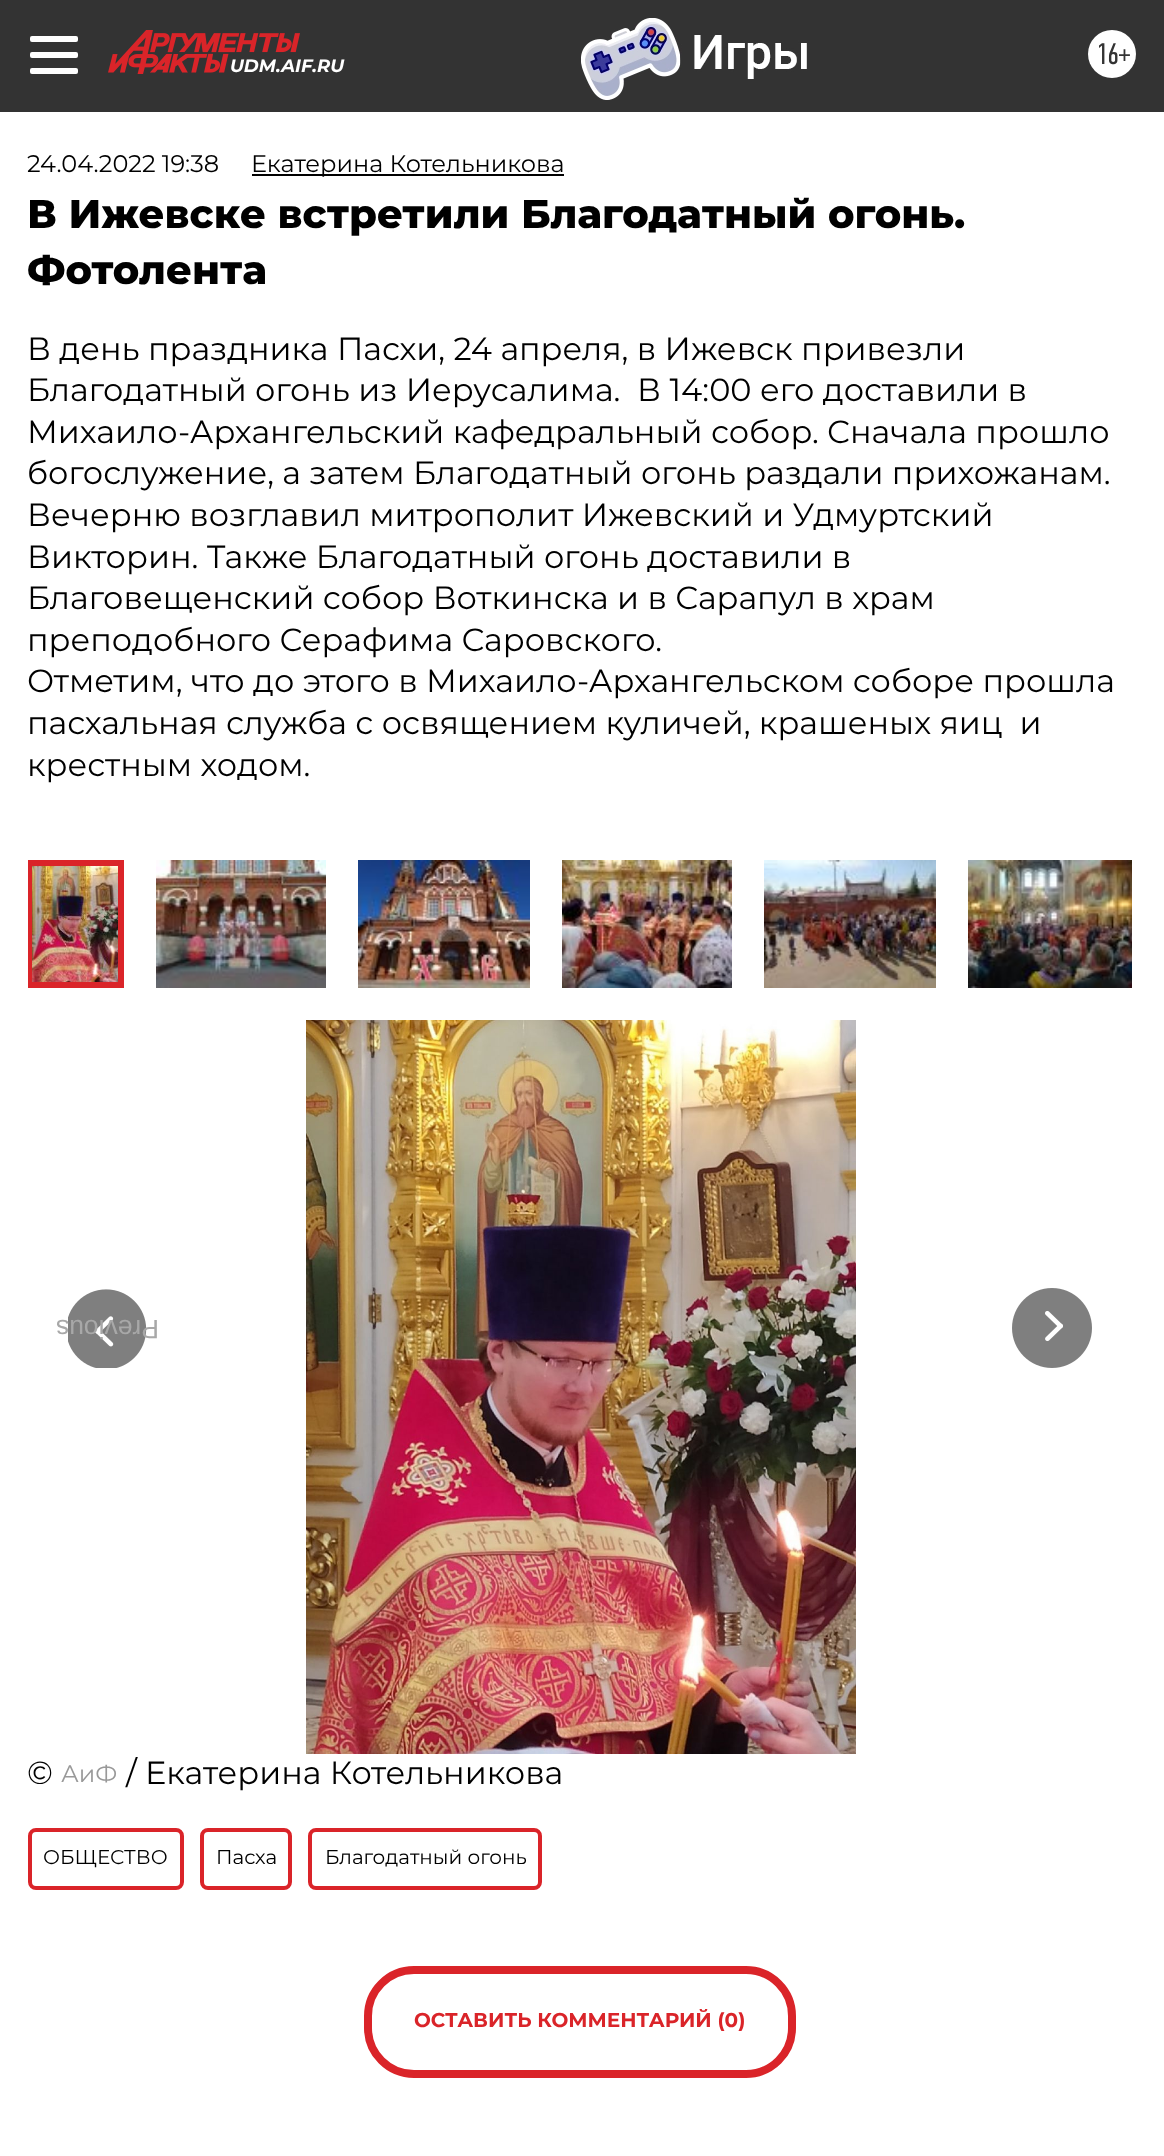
<svg xmlns="http://www.w3.org/2000/svg" width="1164" height="2156" viewBox="0 0 1164 2156">
  <defs>
    <clipPath id="clip1"><rect x="28" y="860" width="1104" height="160"/></clipPath>
  </defs>
  <rect width="100%" height="100%" fill="rgb(255,255,255)"/>
  <rect x="0" y="0" width="1164" height="112" fill="rgb(51,51,51)"/>
  <rect x="30" y="36" width="48" height="6" rx="2" fill="rgb(255,255,255)"/>
  <rect x="30" y="52" width="48" height="6" rx="2" fill="rgb(255,255,255)"/>
  <rect x="30" y="68" width="48" height="6" rx="2" fill="rgb(255,255,255)"/>
  <image x="108" y="30" width="192" height="44" href="pic1.png"/>
  <text x="230" y="72" font-family="Montserrat" font-size="18" font-weight="bold" font-style="italic" fill="rgb(255,255,255)">UDM.AIF.RU</text>
  <image x="581" y="18" width="226" height="82" href="pic2.png"/>
  <circle cx="1112" cy="54" r="24" fill="rgb(255,255,255)"/>
  <text x="1096" y="64" font-family="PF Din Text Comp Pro" font-size="30" fill="rgb(51,51,51)">16+</text>
  <text x="27" y="172" font-family="Montserrat" font-size="24" fill="rgb(0,0,0)">24.04.2022 19:38</text>
  <rect x="252" y="174" width="312" height="2" fill="rgb(0,0,0)"/>
  <text x="251" y="172" font-family="Montserrat" font-size="24" fill="rgb(0,0,0)">Екатерина Котельникова</text>
  <g font-family="Montserrat" font-size="40" font-weight="800" fill="rgb(0,0,0)">
    <text>
      <tspan x="27" y="228">В Ижевске встретили Благодатный огонь.</tspan>
      <tspan x="27" y="284">Фотолента</tspan>
    </text>
  </g>
  <g font-family="Montserrat" font-size="32" fill="rgb(0,0,0)">
    <text xml:space="preserve"><tspan x="27" y="360">В день праздника Пасхи, 24 апреля, в Ижевск привезли</tspan><tspan x="27" y="401">Благодатный огонь из Иерусалима.  В 14:00 его доставили в</tspan><tspan x="27" y="443">Михаило-Архангельский кафедральный собор. Сначала прошло</tspan><tspan x="27" y="484">богослужение, а затем Благодатный огонь раздали прихожанам.</tspan><tspan x="27" y="526">Вечерню возглавил митрополит Ижевский и Удмуртский</tspan><tspan x="27" y="568">Викторин. Также Благодатный огонь доставили в</tspan><tspan x="27" y="609">Благовещенский собор Воткинска и в Сарапул в храм</tspan><tspan x="27" y="651">преподобного Серафима Саровского.</tspan><tspan x="27" y="692">Отметим, что до этого в Михаило-Архангельском соборе прошла</tspan><tspan x="27" y="734">пасхальная служба с освящением куличей, крашеных яиц  и</tspan><tspan x="27" y="776">крестным ходом.</tspan></text>
  </g>
  <image x="32" y="866" width="86" height="116" href="pic3.png"/>
  <g clip-path="url(#clip1)">
    <rect x="29" y="863" width="92" height="122" fill="none" stroke="rgb(218,36,41)" stroke-width="6"/>
  </g>
  <image x="156" y="860" width="170" height="128" href="pic4.png"/>
  <image x="358" y="860" width="172" height="128" href="pic5.png"/>
  <image x="562" y="860" width="170" height="128" href="pic6.png"/>
  <image x="764" y="860" width="172" height="128" href="pic7.png"/>
  <image x="968" y="860" width="164" height="128" href="pic8.png"/>
  <image x="68" y="1289" width="79" height="79" href="pic9.png"/>
  <text x="159" y="1320" transform="rotate(180 159 1320)" font-family="Liberation Sans" font-size="26.5" fill="rgb(168,168,168)">Previous</text>
  <image x="306" y="1020" width="550" height="734" href="pic10.png"/>
  <image x="1012" y="1288" width="80" height="80" href="pic11.png"/>
  <text x="27" y="1784" font-family="Montserrat" font-size="32" fill="rgb(0,0,0)">©</text>
  <text x="61" y="1782" font-family="Montserrat" font-size="24" fill="rgb(153,153,153)">АиФ</text>
  <text x="126" y="1784" font-family="Montserrat" font-size="32" fill="rgb(0,0,0)">/ Екатерина Котельникова</text>
  <rect x="30" y="1830" width="152" height="58" rx="6" fill="none" stroke="rgb(218,36,41)" stroke-width="4"/>
  <text x="43" y="1864" font-family="Montserrat" font-size="20" fill="rgb(0,0,0)">ОБЩЕСТВО</text>
  <rect x="202" y="1830" width="88" height="58" rx="6" fill="none" stroke="rgb(218,36,41)" stroke-width="4"/>
  <text x="216" y="1864" font-family="Montserrat" font-size="20" fill="rgb(0,0,0)">Пасха</text>
  <rect x="310" y="1830" width="230" height="58" rx="6" fill="none" stroke="rgb(218,36,41)" stroke-width="4"/>
  <text x="325" y="1864" font-family="Montserrat" font-size="20" fill="rgb(0,0,0)">Благодатный огонь</text>
  <rect x="368" y="1970" width="424" height="104" rx="46" fill="none" stroke="rgb(218,36,41)" stroke-width="8"/>
  <text x="414" y="2027" font-family="Montserrat" font-size="20" font-weight="bold" fill="rgb(218,36,41)">ОСТАВИТЬ КОММЕНТАРИЙ (0)</text>
</svg>
